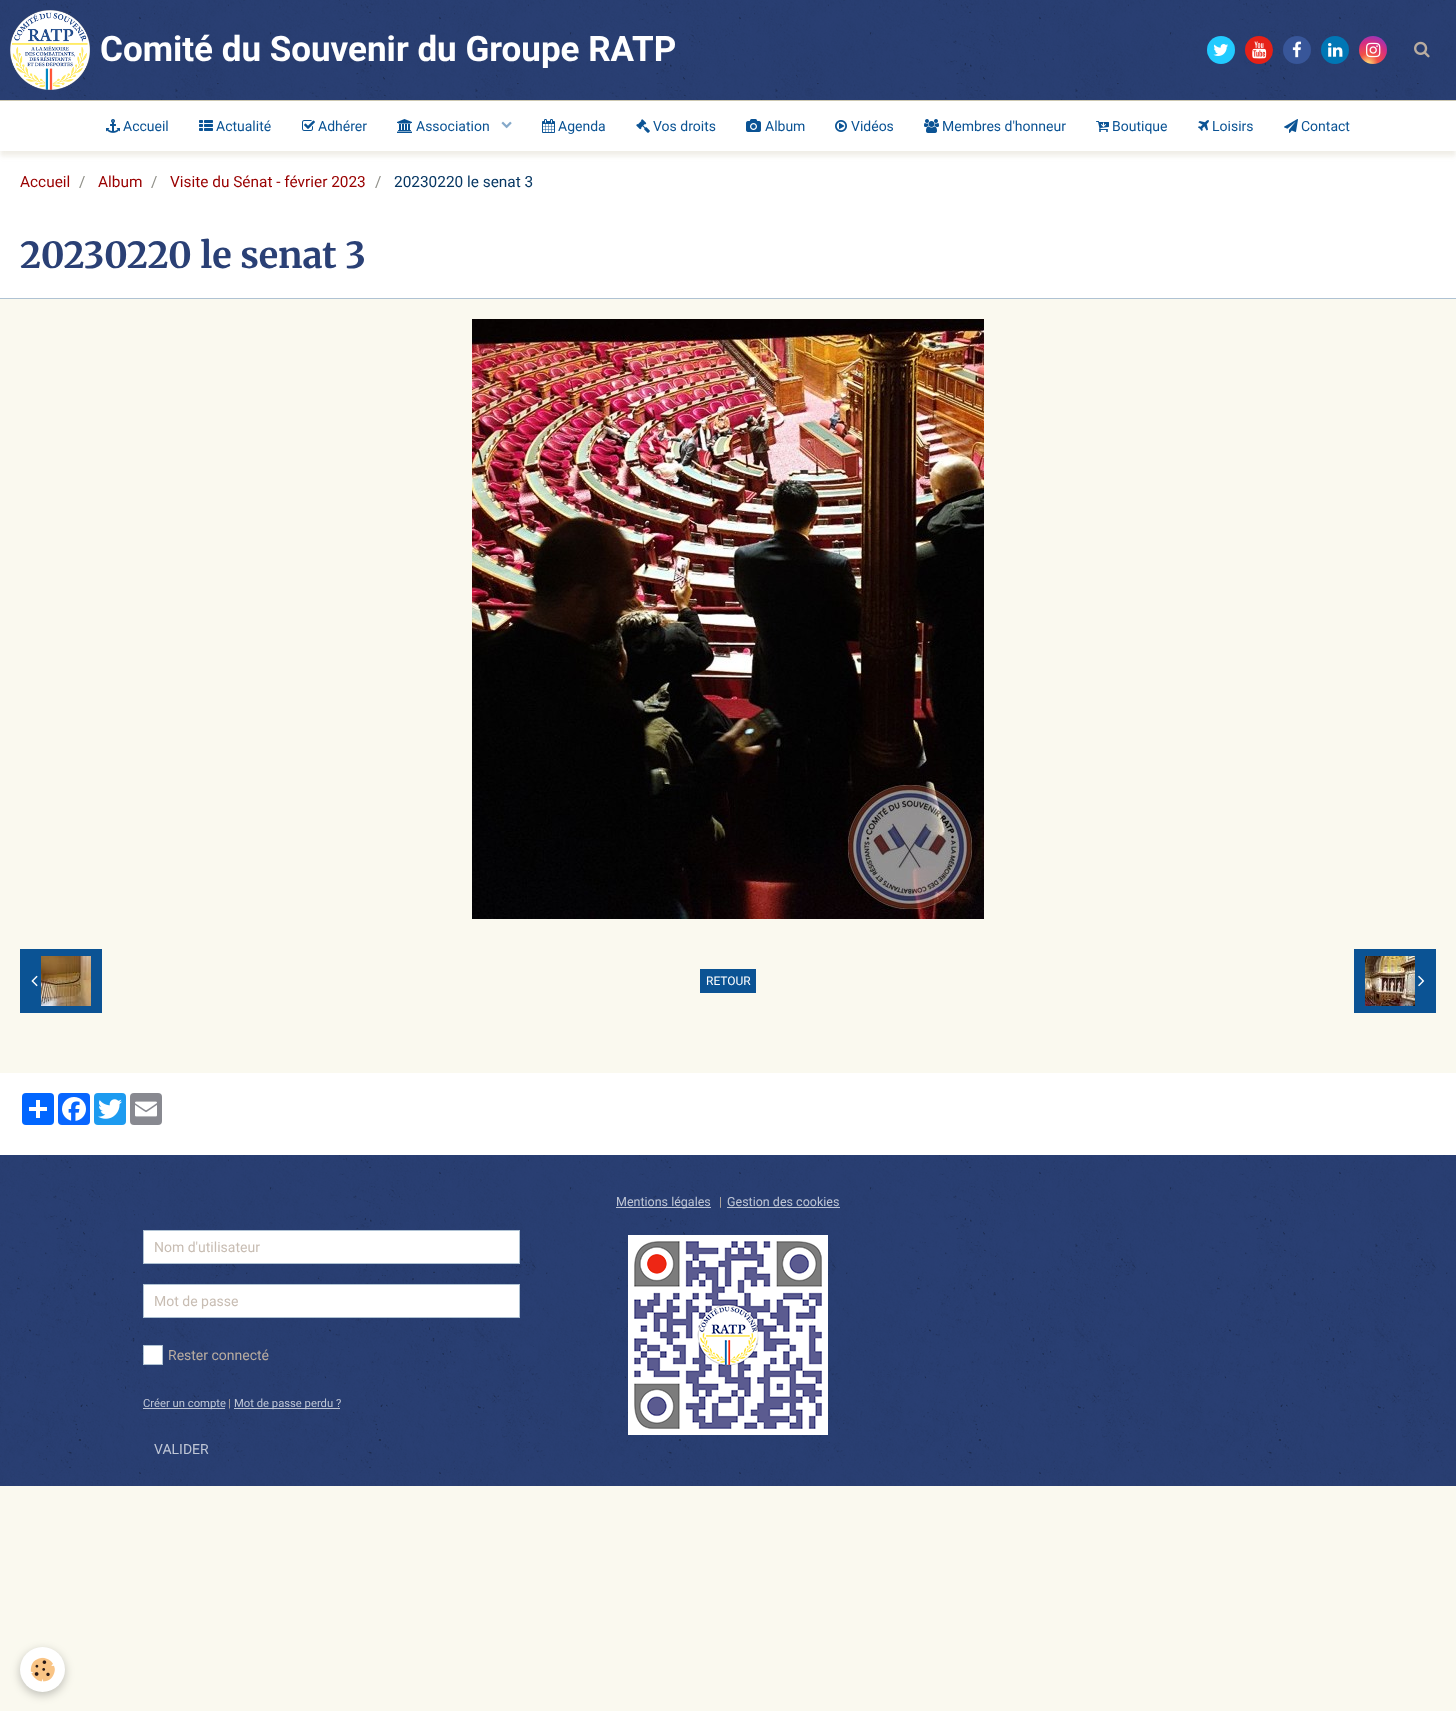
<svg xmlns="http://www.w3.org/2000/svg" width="1456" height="1711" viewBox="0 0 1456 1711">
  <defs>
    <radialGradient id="g1" gradientUnits="userSpaceOnUse" cx="1368" cy="64" r="34"><stop offset="0.04" stop-color="rgb(254,211,115)"/><stop offset="0.3" stop-color="rgb(241,82,69)"/><stop offset="0.62" stop-color="rgb(217,46,127)"/><stop offset="0.85" stop-color="rgb(155,54,183)"/><stop offset="1" stop-color="rgb(81,94,207)"/></radialGradient>
  </defs>
  <rect width="100%" height="100%" fill="rgb(250,249,239)"/>
  <rect x="0" y="151" width="1456" height="147" fill="rgb(255,255,255)"/>
  <rect x="0" y="106" width="1456" height="50" fill="rgba(205,200,177,0.3)" filter="blur(2.5px)"/>
  <rect x="0" y="0" width="1456" height="100" fill="rgb(42,64,117)"/>
  <image x="0" y="0" width="1456" height="100" href="pic1.png"/>
  <rect x="0" y="100" width="1456" height="1" fill="rgb(205,200,177)"/>
  <image x="10" y="10" width="80" height="80" href="pic2.png"/>
  <text x="100" y="61" font-family="Roboto" font-size="35" font-weight="bold" fill="rgb(255,255,255)">Comité du Souvenir du Groupe RATP</text>
  <circle cx="1221" cy="50" r="14" fill="rgb(34,203,255)"/>
  <image x="1213" y="44" width="15" height="12" href="pic3.png"/>
  <circle cx="1259" cy="50" r="14" fill="rgb(230,33,23)"/>
  <image x="1252" y="41" width="15" height="18" href="pic4.png"/>
  <circle cx="1297" cy="50" r="14" fill="rgb(56,86,153)"/>
  <image x="1292" y="41" width="9" height="17" href="pic5.png"/>
  <circle cx="1335" cy="50" r="14" fill="rgb(0,119,181)"/>
  <image x="1328" y="43" width="15" height="14" href="pic6.png"/>
  <circle cx="1373" cy="50" r="14" fill="url(#g1)"/>
  <image x="1366" y="42" width="15" height="16" href="pic7.png"/>
  <image x="1414" y="41" width="16" height="17" href="pic8.png"/>
  <rect x="0" y="101" width="1456" height="50" fill="rgb(255,255,255)"/>
  <image x="106" y="119" width="14" height="14" href="pic9.png"/>
  <text x="123" y="131" font-family="Roboto" font-size="14" fill="rgb(11,83,148)">Accueil</text>
  <image x="199" y="120" width="14" height="11" href="pic10.png"/>
  <text x="216" y="131" font-family="Roboto" font-size="14" fill="rgb(11,83,148)">Actualité</text>
  <image x="302" y="120" width="13" height="11" href="pic11.png"/>
  <text x="318" y="131" font-family="Roboto" font-size="14" fill="rgb(11,83,148)">Adhérer</text>
  <image x="397" y="119" width="15" height="14" href="pic12.png"/>
  <text x="416" y="131" font-family="Roboto" font-size="14" fill="rgb(11,83,148)">Association</text>
  <image x="501" y="121" width="11" height="8" href="pic13.png"/>
  <image x="542" y="119" width="13" height="14" href="pic14.png"/>
  <text x="558" y="131" font-family="Roboto" font-size="14" fill="rgb(11,83,148)">Agenda</text>
  <image x="636" y="119" width="14" height="14" href="pic15.png"/>
  <text x="653" y="131" font-family="Roboto" font-size="14" fill="rgb(11,83,148)">Vos droits</text>
  <image x="746" y="119" width="15" height="13" href="pic16.png"/>
  <text x="765" y="131" font-family="Roboto" font-size="14" fill="rgb(11,83,148)">Album</text>
  <image x="835" y="120" width="12" height="12" href="pic17.png"/>
  <text x="851" y="131" font-family="Roboto" font-size="14" fill="rgb(11,83,148)">Vidéos</text>
  <image x="924" y="119" width="15" height="14" href="pic18.png"/>
  <text x="942" y="131" font-family="Roboto" font-size="14" fill="rgb(11,83,148)">Membres d'honneur</text>
  <image x="1096" y="121" width="13" height="11" href="pic19.png"/>
  <text x="1112" y="131" font-family="Roboto" font-size="14" fill="rgb(11,83,148)">Boutique</text>
  <image x="1198" y="120" width="11" height="11" href="pic20.png"/>
  <text x="1212" y="131" font-family="Roboto" font-size="14" fill="rgb(11,83,148)">Loisirs</text>
  <image x="1284" y="119" width="14" height="14" href="pic21.png"/>
  <text x="1301" y="131" font-family="Roboto" font-size="14" fill="rgb(11,83,148)">Contact</text>
  <text x="20" y="187" font-family="Roboto" font-size="15.4" fill="rgb(153,0,0)">Accueil</text>
  <text x="79" y="187" font-family="Roboto" font-size="15.4" fill="rgb(144,144,137)">/</text>
  <text x="98" y="187" font-family="Roboto" font-size="15.4" fill="rgb(153,0,0)">Album</text>
  <text x="151" y="187" font-family="Roboto" font-size="15.4" fill="rgb(144,144,137)">/</text>
  <text x="170" y="187" font-family="Roboto" font-size="15.4" fill="rgb(153,0,0)">Visite du Sénat - février 2023</text>
  <text x="375" y="187" font-family="Roboto" font-size="15.4" fill="rgb(144,144,137)">/</text>
  <text x="394" y="187" font-family="Roboto" font-size="15.4" fill="rgb(7,55,99)">20230220 le senat 3</text>
  <rect x="0" y="298" width="1456" height="1" fill="rgb(175,194,211)"/>
  <text x="20" y="268" font-family="Merriweather" font-size="36" font-weight="bold" fill="rgb(42,64,117)">20230220 le senat 3</text>
  <image x="472" y="319" width="512" height="600" href="pic22.png"/>
  <rect x="20" y="949" width="82" height="64" fill="rgb(11,83,148)"/>
  <image x="31" y="975" width="7" height="12" href="pic23.png"/>
  <image x="41" y="956" width="50" height="50" href="pic24.png"/>
  <rect x="700" y="969" width="56" height="24" fill="rgb(11,83,148)"/>
  <text x="706" y="985" font-family="Roboto" font-size="12" fill="rgb(255,255,255)">RETOUR</text>
  <rect x="1354" y="949" width="82" height="64" fill="rgb(11,83,148)"/>
  <image x="1365" y="956" width="50" height="50" href="pic25.png"/>
  <image x="1418" y="975" width="7" height="12" href="pic26.png"/>
  <rect x="0" y="1073" width="1456" height="82" fill="rgb(255,255,255)"/>
  <rect x="22" y="1093" width="32" height="32" rx="4" fill="rgb(1,102,255)"/>
  <rect x="36" y="1100" width="4" height="18" fill="rgb(255,255,255)"/>
  <rect x="29" y="1107" width="18" height="4" fill="rgb(255,255,255)"/>
  <rect x="58" y="1093" width="32" height="32" rx="4" fill="rgb(8,102,255)"/>
  <image x="62" y="1097" width="24" height="24" href="pic27.png"/>
  <rect x="94" y="1093" width="32" height="32" rx="4" fill="rgb(29,155,240)"/>
  <image x="98" y="1099" width="24" height="20" href="pic28.png"/>
  <rect x="130" y="1093" width="32" height="32" rx="4" fill="rgb(136,137,144)"/>
  <image x="135" y="1101" width="22" height="16" href="pic29.png"/>
  <rect x="0" y="1155" width="1456" height="331" fill="rgb(42,64,117)"/>
  <image x="0" y="1155" width="1456" height="331" href="pic30.png"/>
  <rect x="616" y="1207" width="95" height="1" fill="rgba(255,255,255,0.7)"/>
  <text x="616" y="1206" font-family="Roboto" font-size="12.5" fill="rgb(191,198,213)">Mentions légales</text>
  <text x="719" y="1206" font-family="Roboto" font-size="12.5" fill="rgb(186,173,160)">|</text>
  <text x="727" y="1206" font-family="Roboto" font-size="12.5" fill="rgb(191,198,213)">Gestion des cookies</text>
  <rect x="727" y="1207" width="113" height="1" fill="rgba(255,255,255,0.7)"/>
  <rect x="143.5" y="1230.5" width="376" height="33" fill="rgb(255,255,255)" stroke="rgb(175,194,211)"/>
  <text x="154" y="1252" font-family="Roboto" font-size="14" fill="rgb(200,189,179)">Nom d'utilisateur</text>
  <rect x="143.5" y="1284.5" width="376" height="33" fill="rgb(255,255,255)" stroke="rgb(175,194,211)"/>
  <text x="154" y="1306" font-family="Roboto" font-size="14" fill="rgb(200,189,179)">Mot de passe</text>
  <rect x="143.5" y="1345.5" width="19" height="19" fill="rgb(255,255,255)" stroke="rgb(175,194,211)"/>
  <text x="168" y="1360" font-family="Roboto" font-size="14" fill="rgb(186,173,160)">Rester connecté</text>
  <rect x="143" y="1408" width="82" height="1" fill="rgba(255,255,255,0.7)"/>
  <text x="143" y="1407" font-family="Roboto" font-size="11.25" fill="rgb(191,198,213)">Créer un compte</text>
  <text x="228" y="1407" font-family="Roboto" font-size="11.25" fill="rgb(186,173,160)">|</text>
  <rect x="234" y="1408" width="106" height="1" fill="rgba(255,255,255,0.7)"/>
  <text x="234" y="1407" font-family="Roboto" font-size="11.25" fill="rgb(191,198,213)">Mot de passe perdu ?</text>
  <text x="154" y="1454" font-family="Roboto" font-size="14" fill="rgb(191,198,213)">VALIDER</text>
  <image x="628" y="1235" width="200" height="200" href="pic31.png"/>
  <rect x="20" y="1650" width="45" height="45" rx="22.5" fill="rgba(0,0,0,0.24)" filter="blur(5px)"/>
  <circle cx="42.5" cy="1669.5" r="22.5" fill="rgb(255,255,255)"/>
  <image x="30" y="1657" width="25" height="25" href="pic32.png"/>
</svg>
